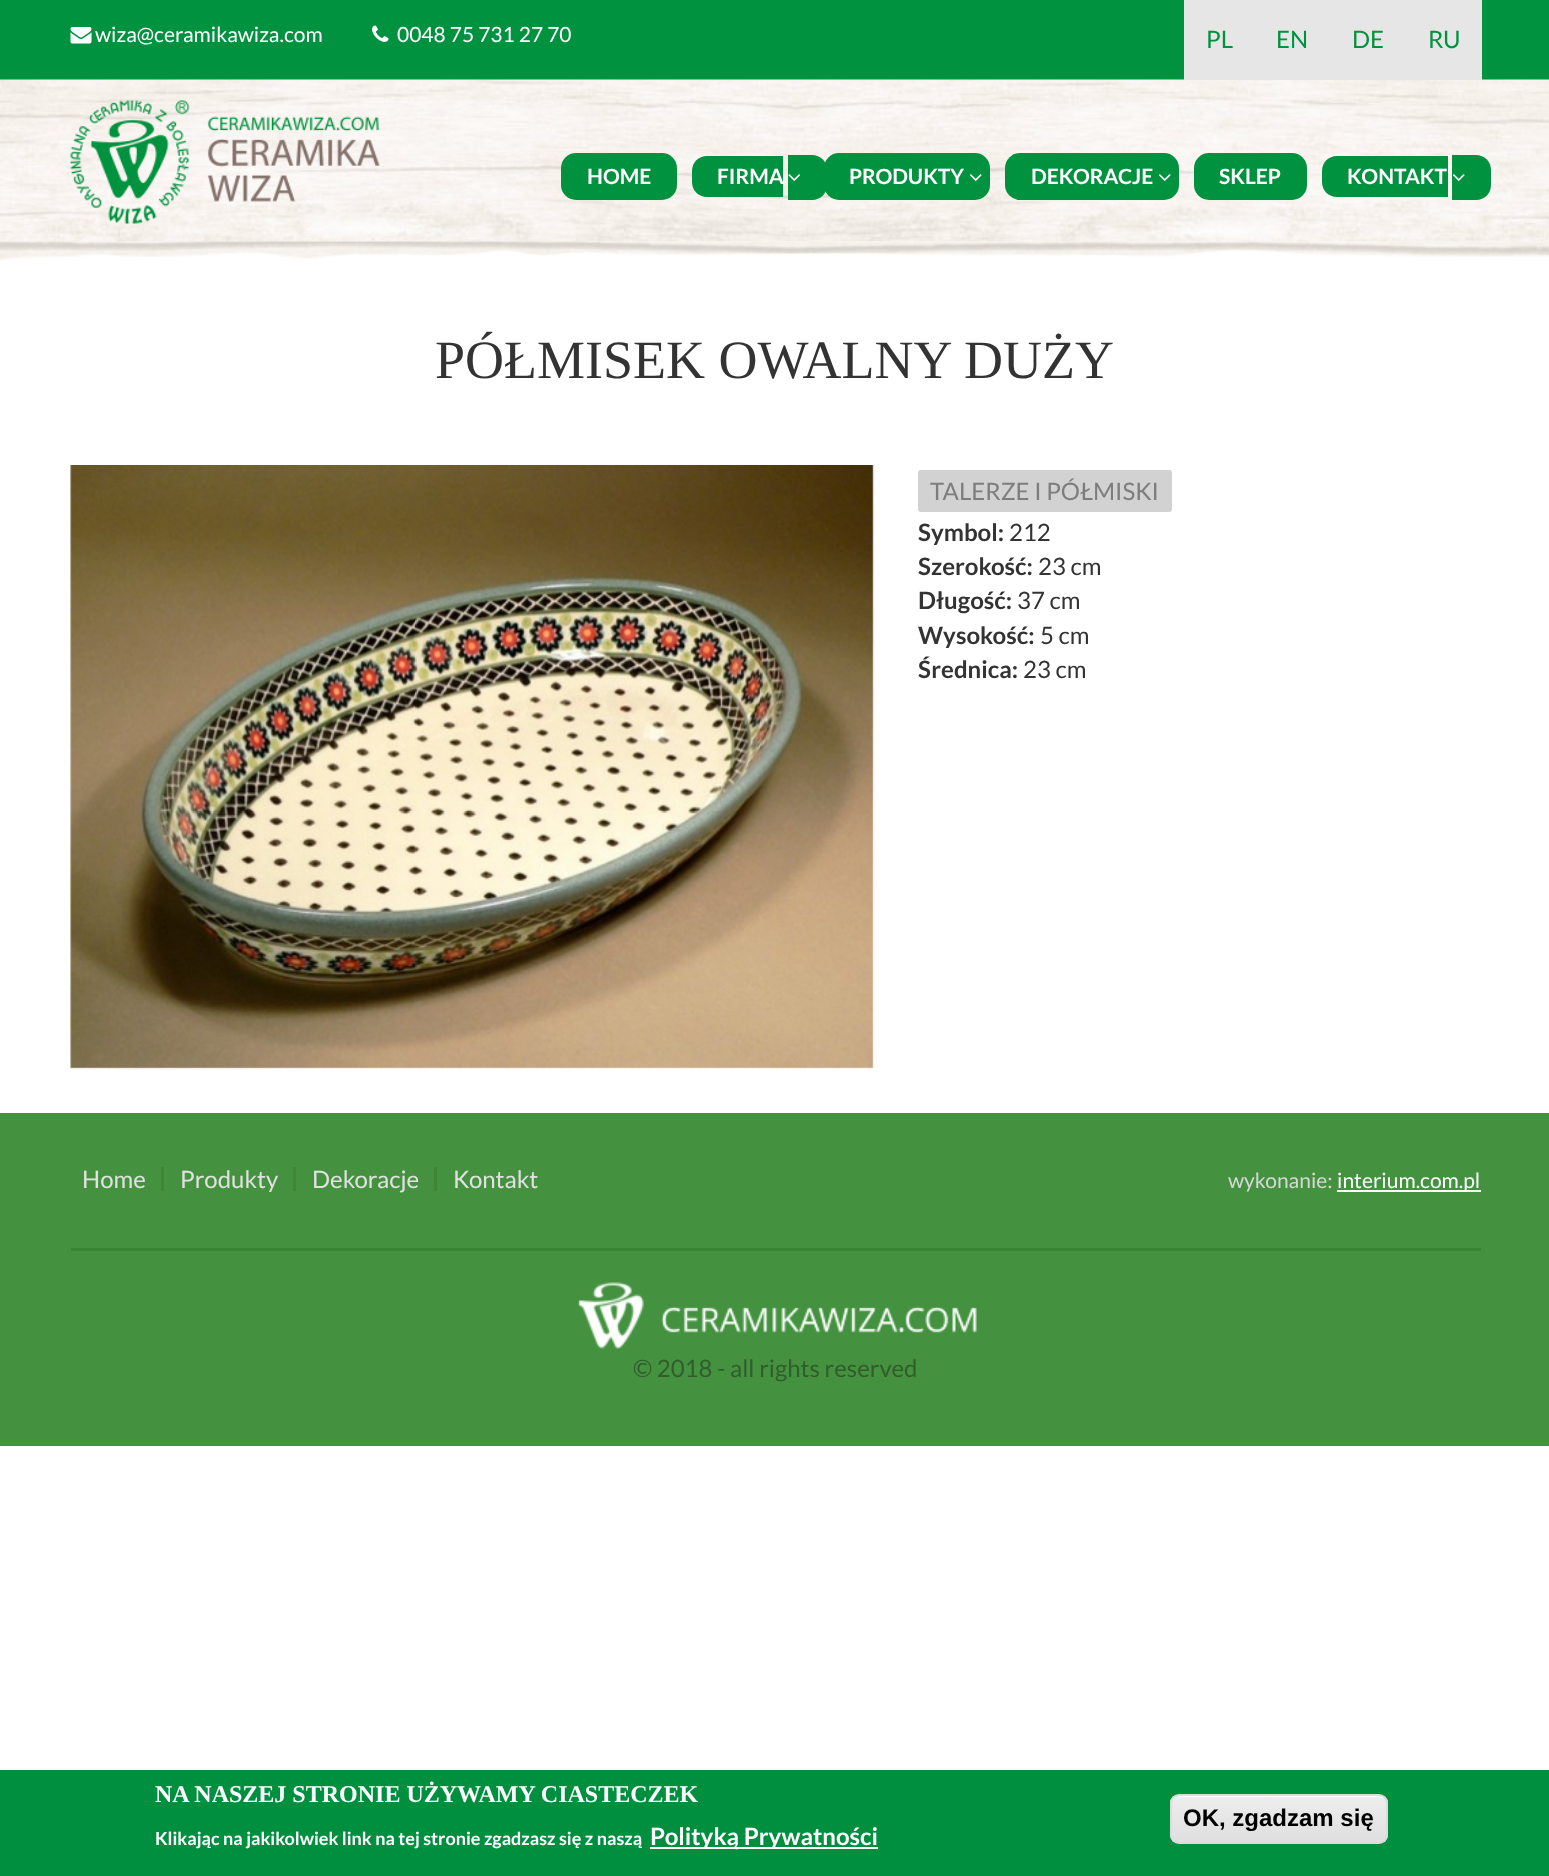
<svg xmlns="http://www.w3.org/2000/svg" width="1549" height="1876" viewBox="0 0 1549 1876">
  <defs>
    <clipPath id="clip1"><rect x="1170" y="1794" width="218" height="50" rx="9"/></clipPath>
    <linearGradient id="g1" gradientUnits="userSpaceOnUse" x1="1279" y1="1796" x2="1279" y2="1842"><stop offset="0.05" stop-color="rgb(237,237,237)"/><stop offset="1" stop-color="rgb(223,223,223)"/></linearGradient>
  </defs>
  <rect width="100%" height="100%" fill="rgb(255,255,255)"/>
  <rect x="0" y="0" width="1549" height="80" fill="rgb(0,146,63)"/>
  <image x="70" y="27" width="22" height="17" href="pic1.png"/>
  <text x="95" y="42" font-family="Lato" font-size="21" fill="rgb(255,255,255)">wiza@ceramikawiza.com</text>
  <image x="372" y="25" width="17" height="17" href="pic2.png"/>
  <text x="397" y="42" font-family="Lato" font-size="21" fill="rgb(255,255,255)">0048 75 731 27 70</text>
  <image x="0" y="79" width="1549" height="163" href="pic3.png"/>
  <rect x="1184" y="0" width="298" height="80" fill="rgb(230,230,230)"/>
  <g font-family="Lato" font-size="24" fill="rgb(0,146,63)">
    <text x="1206" y="48">PL</text>
    <text x="1276" y="48">EN</text>
    <text x="1352" y="48">DE</text>
    <text x="1428" y="48">RU</text>
  </g>
  <image x="70" y="100" width="310" height="124" href="pic4.png"/>
  <rect x="561" y="153" width="116" height="47" rx="15" fill="rgb(0,146,63)"/>
  <text x="587" y="184" font-family="Lato" font-size="21" font-weight="bold" fill="rgb(255,255,255)">HOME</text>
  <path d="M707 156H783V197H707C698.5 197 692 190.5 692 182V171C692 162.5 698.5 156 707 156Z" fill="rgb(0,146,63)"/>
  <path d="M788 155H812C820.5 155 827 161.5 827 170V185C827 193.5 820.5 200 812 200H788Z" fill="rgb(0,146,63)"/>
  <text x="717" y="184" font-family="Lato" font-size="21" font-weight="bold" fill="rgb(255,255,255)">FIRMA</text>
  <image x="788" y="174" width="12" height="7" href="pic5.png"/>
  <rect x="824" y="153" width="166" height="47" rx="15" fill="rgb(0,146,63)"/>
  <text x="849" y="184" font-family="Lato" font-size="21" font-weight="bold" fill="rgb(255,255,255)">PRODUKTY</text>
  <image x="970" y="174" width="12" height="7" href="pic6.png"/>
  <rect x="1005" y="153" width="174" height="47" rx="15" fill="rgb(0,146,63)"/>
  <text x="1031" y="184" font-family="Lato" font-size="21" font-weight="bold" fill="rgb(255,255,255)">DEKORACJE</text>
  <image x="1159" y="174" width="12" height="7" href="pic6.png"/>
  <rect x="1194" y="153" width="113" height="47" rx="15" fill="rgb(0,146,63)"/>
  <text x="1219" y="184" font-family="Lato" font-size="21" font-weight="bold" fill="rgb(255,255,255)">SKLEP</text>
  <path d="M1337 156H1448V197H1337C1328.5 197 1322 190.5 1322 182V171C1322 162.5 1328.5 156 1337 156Z" fill="rgb(0,146,63)"/>
  <path d="M1452 155H1476C1484.5 155 1491 161.5 1491 170V185C1491 193.5 1484.5 200 1476 200H1452Z" fill="rgb(0,146,63)"/>
  <text x="1347" y="184" font-family="Lato" font-size="21" font-weight="bold" fill="rgb(255,255,255)">KONTAKT</text>
  <image x="1453" y="174" width="12" height="7" href="pic6.png"/>
  <image x="0" y="241" width="1549" height="20" href="pic7.png"/>
  <text x="435" y="378" font-family="Liberation Serif" font-size="54" fill="rgb(51,51,51)">PÓŁMISEK OWALNY DUŻY</text>
  <image x="70" y="465" width="805" height="605" href="pic8.png"/>
  <rect x="918" y="470" width="254" height="42" rx="3" fill="rgb(210,210,210)"/>
  <text x="930" y="500" font-family="Lato" font-size="24" fill="rgb(125,125,125)">TALERZE I PÓŁMISKI</text>
  <text x="918" y="541" font-family="Lato" font-size="24" font-weight="bold" fill="rgb(51,51,51)">Symbol:</text>
  <text x="1009" y="541" font-family="Lato" font-size="24" fill="rgb(51,51,51)">212</text>
  <text x="918" y="575" font-family="Lato" font-size="24" font-weight="bold" fill="rgb(51,51,51)">Szerokość:</text>
  <text x="1038" y="575" font-family="Lato" font-size="24" fill="rgb(51,51,51)">23 cm</text>
  <text x="918" y="609" font-family="Lato" font-size="24" font-weight="bold" fill="rgb(51,51,51)">Długość:</text>
  <text x="1017" y="609" font-family="Lato" font-size="24" fill="rgb(51,51,51)">37 cm</text>
  <text x="918" y="644" font-family="Lato" font-size="24" font-weight="bold" fill="rgb(51,51,51)">Wysokość:</text>
  <text x="1040" y="644" font-family="Lato" font-size="24" fill="rgb(51,51,51)">5 cm</text>
  <text x="918" y="678" font-family="Lato" font-size="24" font-weight="bold" fill="rgb(51,51,51)">Średnica:</text>
  <text x="1023" y="678" font-family="Lato" font-size="24" fill="rgb(51,51,51)">23 cm</text>
  <rect x="0" y="1113" width="1549" height="333" fill="rgb(68,146,64)"/>
  <rect x="161" y="1167" width="3" height="24" fill="rgb(62,134,51)"/>
  <text x="82" y="1188" font-family="Lato" font-size="24" fill="rgb(225,225,225)">Home</text>
  <rect x="293" y="1167" width="3" height="24" fill="rgb(62,134,51)"/>
  <text x="180" y="1188" font-family="Lato" font-size="24" fill="rgb(225,225,225)">Produkty</text>
  <rect x="434" y="1167" width="3" height="24" fill="rgb(62,134,51)"/>
  <g font-family="Lato" font-size="24" fill="rgb(225,225,225)">
    <text x="312" y="1188">Dekoracje</text>
    <text x="453" y="1188">Kontakt</text>
  </g>
  <text x="1228" y="1188" font-family="Lato" font-size="21" fill="rgb(215,215,215)">wykonanie:</text>
  <rect x="1337" y="1190" width="144" height="2" fill="rgb(255,255,255)"/>
  <text x="1337" y="1188" font-family="Lato" font-size="21" fill="rgb(255,255,255)">interium.com.pl</text>
  <rect x="71" y="1248" width="1410" height="3" fill="rgb(56,134,52)"/>
  <image x="578" y="1282" width="399" height="67" href="pic9.png"/>
  <text x="633" y="1377" font-family="Lato" font-size="24" fill="rgb(49,93,42)">© 2018 - all rights reserved</text>
  <rect x="0" y="1770" width="1549" height="106" fill="rgb(0,143,62)"/>
  <text x="155" y="1802" font-family="Liberation Serif" font-size="24" font-weight="bold" fill="rgb(255,255,255)">NA NASZEJ STRONIE UŻYWAMY CIASTECZEK</text>
  <text x="155" y="1845" font-family="Lato" font-size="18" font-weight="bold" fill="rgb(255,255,255)">Klikając na jakikolwiek link na tej stronie zgadzasz się z naszą</text>
  <rect x="650" y="1847" width="228" height="2" fill="rgb(255,255,255)"/>
  <text x="650" y="1845" font-family="Lato" font-size="24" font-weight="bold" fill="rgb(255,255,255)">Polityką Prywatności</text>
  <g clip-path="url(#clip1)">
    <rect x="1170" y="1796" width="218" height="46" fill="url(#g1)"/>
  </g>
  <path d="M1179 1797H1378C1383 1797 1386 1800 1386 1804C1386 1800 1382 1796 1378 1796H1180C1176 1796 1172 1800 1172 1804C1172 1800 1175 1797 1179 1797Z" fill="rgb(255,255,255)"/>
  <rect x="1171" y="1795" width="216" height="48" rx="8" fill="none" stroke="rgb(220,220,220)" stroke-width="2"/>
  <text x="1183" y="1826" font-family="Liberation Sans" font-size="24" font-weight="bold" fill="rgb(0,0,0)">OK, zgadzam się</text>
</svg>
